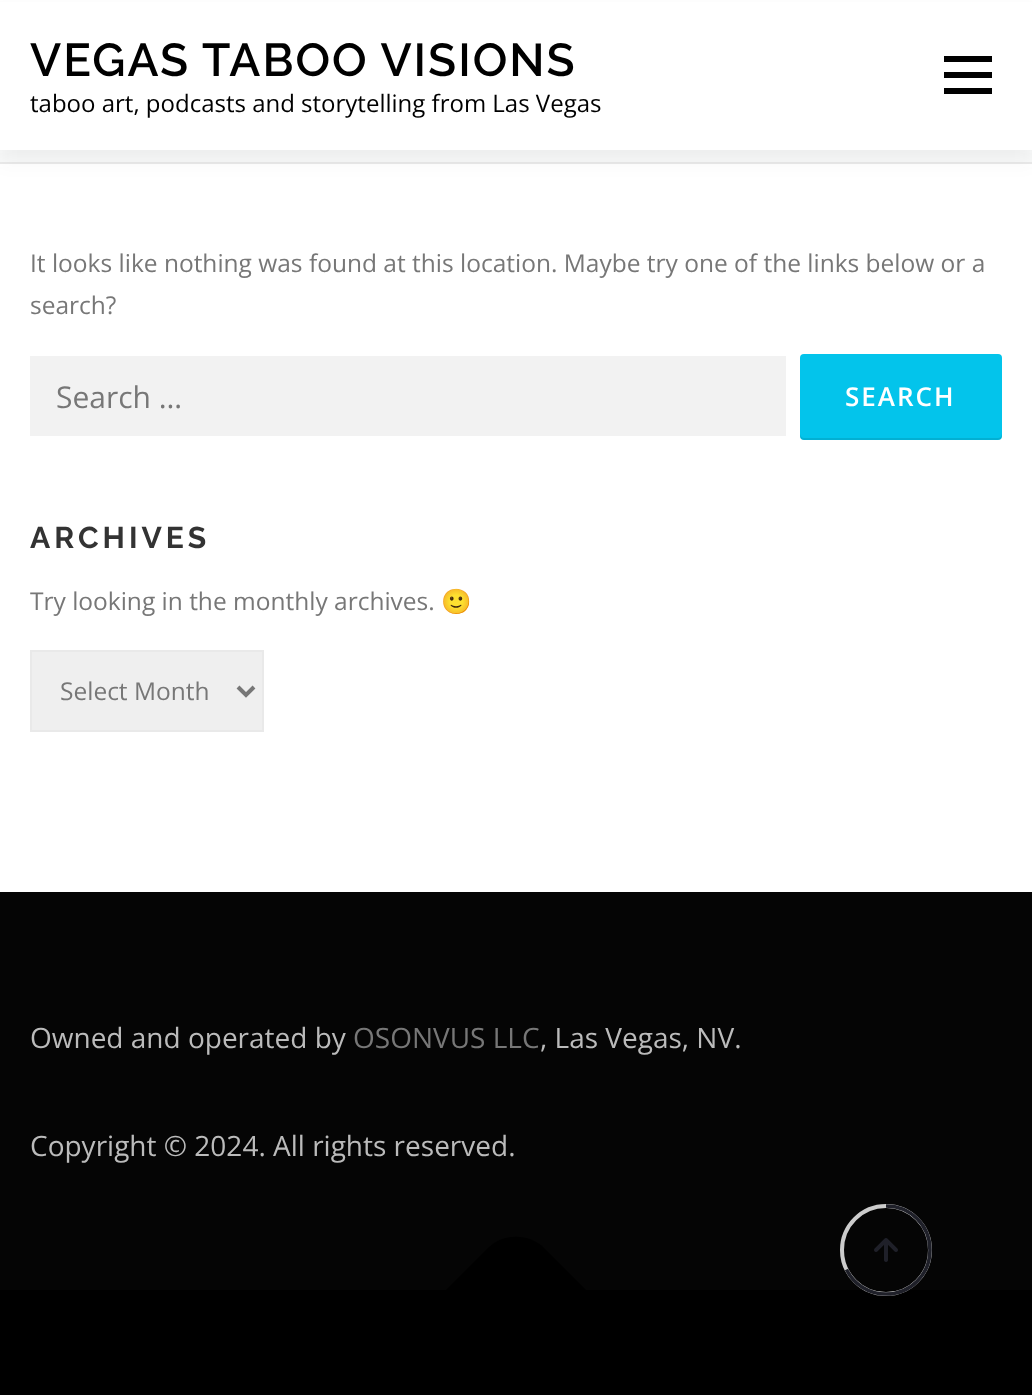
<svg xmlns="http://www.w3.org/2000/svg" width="1032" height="1395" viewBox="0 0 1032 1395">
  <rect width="100%" height="100%" fill="rgb(255,255,255)"/>
  <rect x="0" y="150" width="1032" height="12" fill="rgb(248,249,249)"/>
  <rect x="0" y="162" width="1032" height="2" fill="rgb(233,233,233)"/>
  <rect x="0" y="10" width="1032" height="150" fill="rgba(50,50,50,0.06)" filter="blur(10px)"/>
  <rect x="0" y="2" width="1032" height="148" fill="rgb(255,255,255)"/>
  <text x="30" y="76" font-family="Raleway" font-size="46" font-weight="600" letter-spacing="2" fill="rgb(0,0,0)">VEGAS TABOO VISIONS</text>
  <text x="30" y="112" font-family="Open Sans" font-size="24" fill="rgb(0,0,0)">taboo art, podcasts and storytelling from Las Vegas</text>
  <rect x="944" y="72" width="48" height="6" fill="rgb(0,0,0)"/>
  <rect x="944" y="56" width="48" height="6" fill="rgb(0,0,0)"/>
  <rect x="944" y="88" width="48" height="6" fill="rgb(0,0,0)"/>
  <g font-family="Open Sans" font-size="24.5" fill="rgb(119,119,119)">
    <text>
      <tspan x="30" y="272">It looks like nothing was found at this location. Maybe try one of the links below or a</tspan>
      <tspan x="30" y="314">search?</tspan>
    </text>
  </g>
  <rect x="30" y="356" width="756" height="80" fill="rgb(242,242,242)"/>
  <text x="56" y="408" font-family="Open Sans" font-size="30" fill="rgb(119,119,119)">Search …</text>
  <rect x="800" y="354" width="202" height="86" rx="4" fill="rgb(3,196,235)"/>
  <path d="M800 434V436C800 438 802 440 804 440H998C1000 440 1002 438 1002 436V434C1002 436 1000 438 998 438H804C802 438 800 436 800 434Z" fill="rgba(0,0,0,0.1)"/>
  <text x="845" y="406" font-family="Open Sans" font-size="26" font-weight="600" letter-spacing="2" fill="rgb(255,255,255)">SEARCH</text>
  <text x="30" y="548" font-family="Raleway" font-size="30" font-weight="bold" letter-spacing="4" fill="rgb(51,51,51)">ARCHIVES</text>
  <text x="30" y="610" font-family="Open Sans" font-size="24.5" fill="rgb(119,119,119)">Try looking in the monthly archives.</text>
  <text x="441" y="610" font-family="Noto Color Emoji" font-size="24.5" fill="rgb(119,119,119)">🙂</text>
  <rect x="31" y="651" width="232" height="80" fill="rgb(239,239,239)" stroke="rgb(233,233,233)" stroke-width="2"/>
  <path d="M238 687L246 695L254 687" fill="none" stroke="rgb(119,119,119)" stroke-width="4"/>
  <text x="60" y="700" font-family="Open Sans" font-size="24.5" fill="rgb(119,119,119)">Select Month</text>
  <rect x="0" y="892" width="1032" height="398" fill="rgb(5,5,5)"/>
  <text x="30" y="1048" font-family="Open Sans" font-size="28" fill="rgb(187,187,187)">Owned and operated by</text>
  <text x="353" y="1048" font-family="Open Sans" font-size="28" fill="rgb(119,119,119)">OSONVUS LLC</text>
  <g font-family="Open Sans" font-size="28" fill="rgb(187,187,187)">
    <text x="540" y="1048">, Las Vegas, NV.</text>
    <text x="30" y="1156">Copyright © 2024. All rights reserved.</text>
  </g>
  <rect x="0" y="1290" width="1032" height="105" fill="rgb(0,0,0)"/>
  <path d="M445 1291L488 1248C503 1233 529 1233 544 1248L587 1291L516 1361Z" fill="rgb(0,0,0)"/>
  <circle cx="886" cy="1250" r="44" fill="none" stroke="rgb(204,204,204)" stroke-width="4"/>
  <path d="M886 1206C910.5 1206 930 1225.5 930 1250C930 1274.5 910.5 1294 886 1294C868.5 1294 853.5 1284 846.5 1269.5" fill="none" stroke="rgb(31,32,41)" stroke-width="3.6"/>
  <image x="874" y="1238" width="24" height="24" href="pic1.png"/>
</svg>
